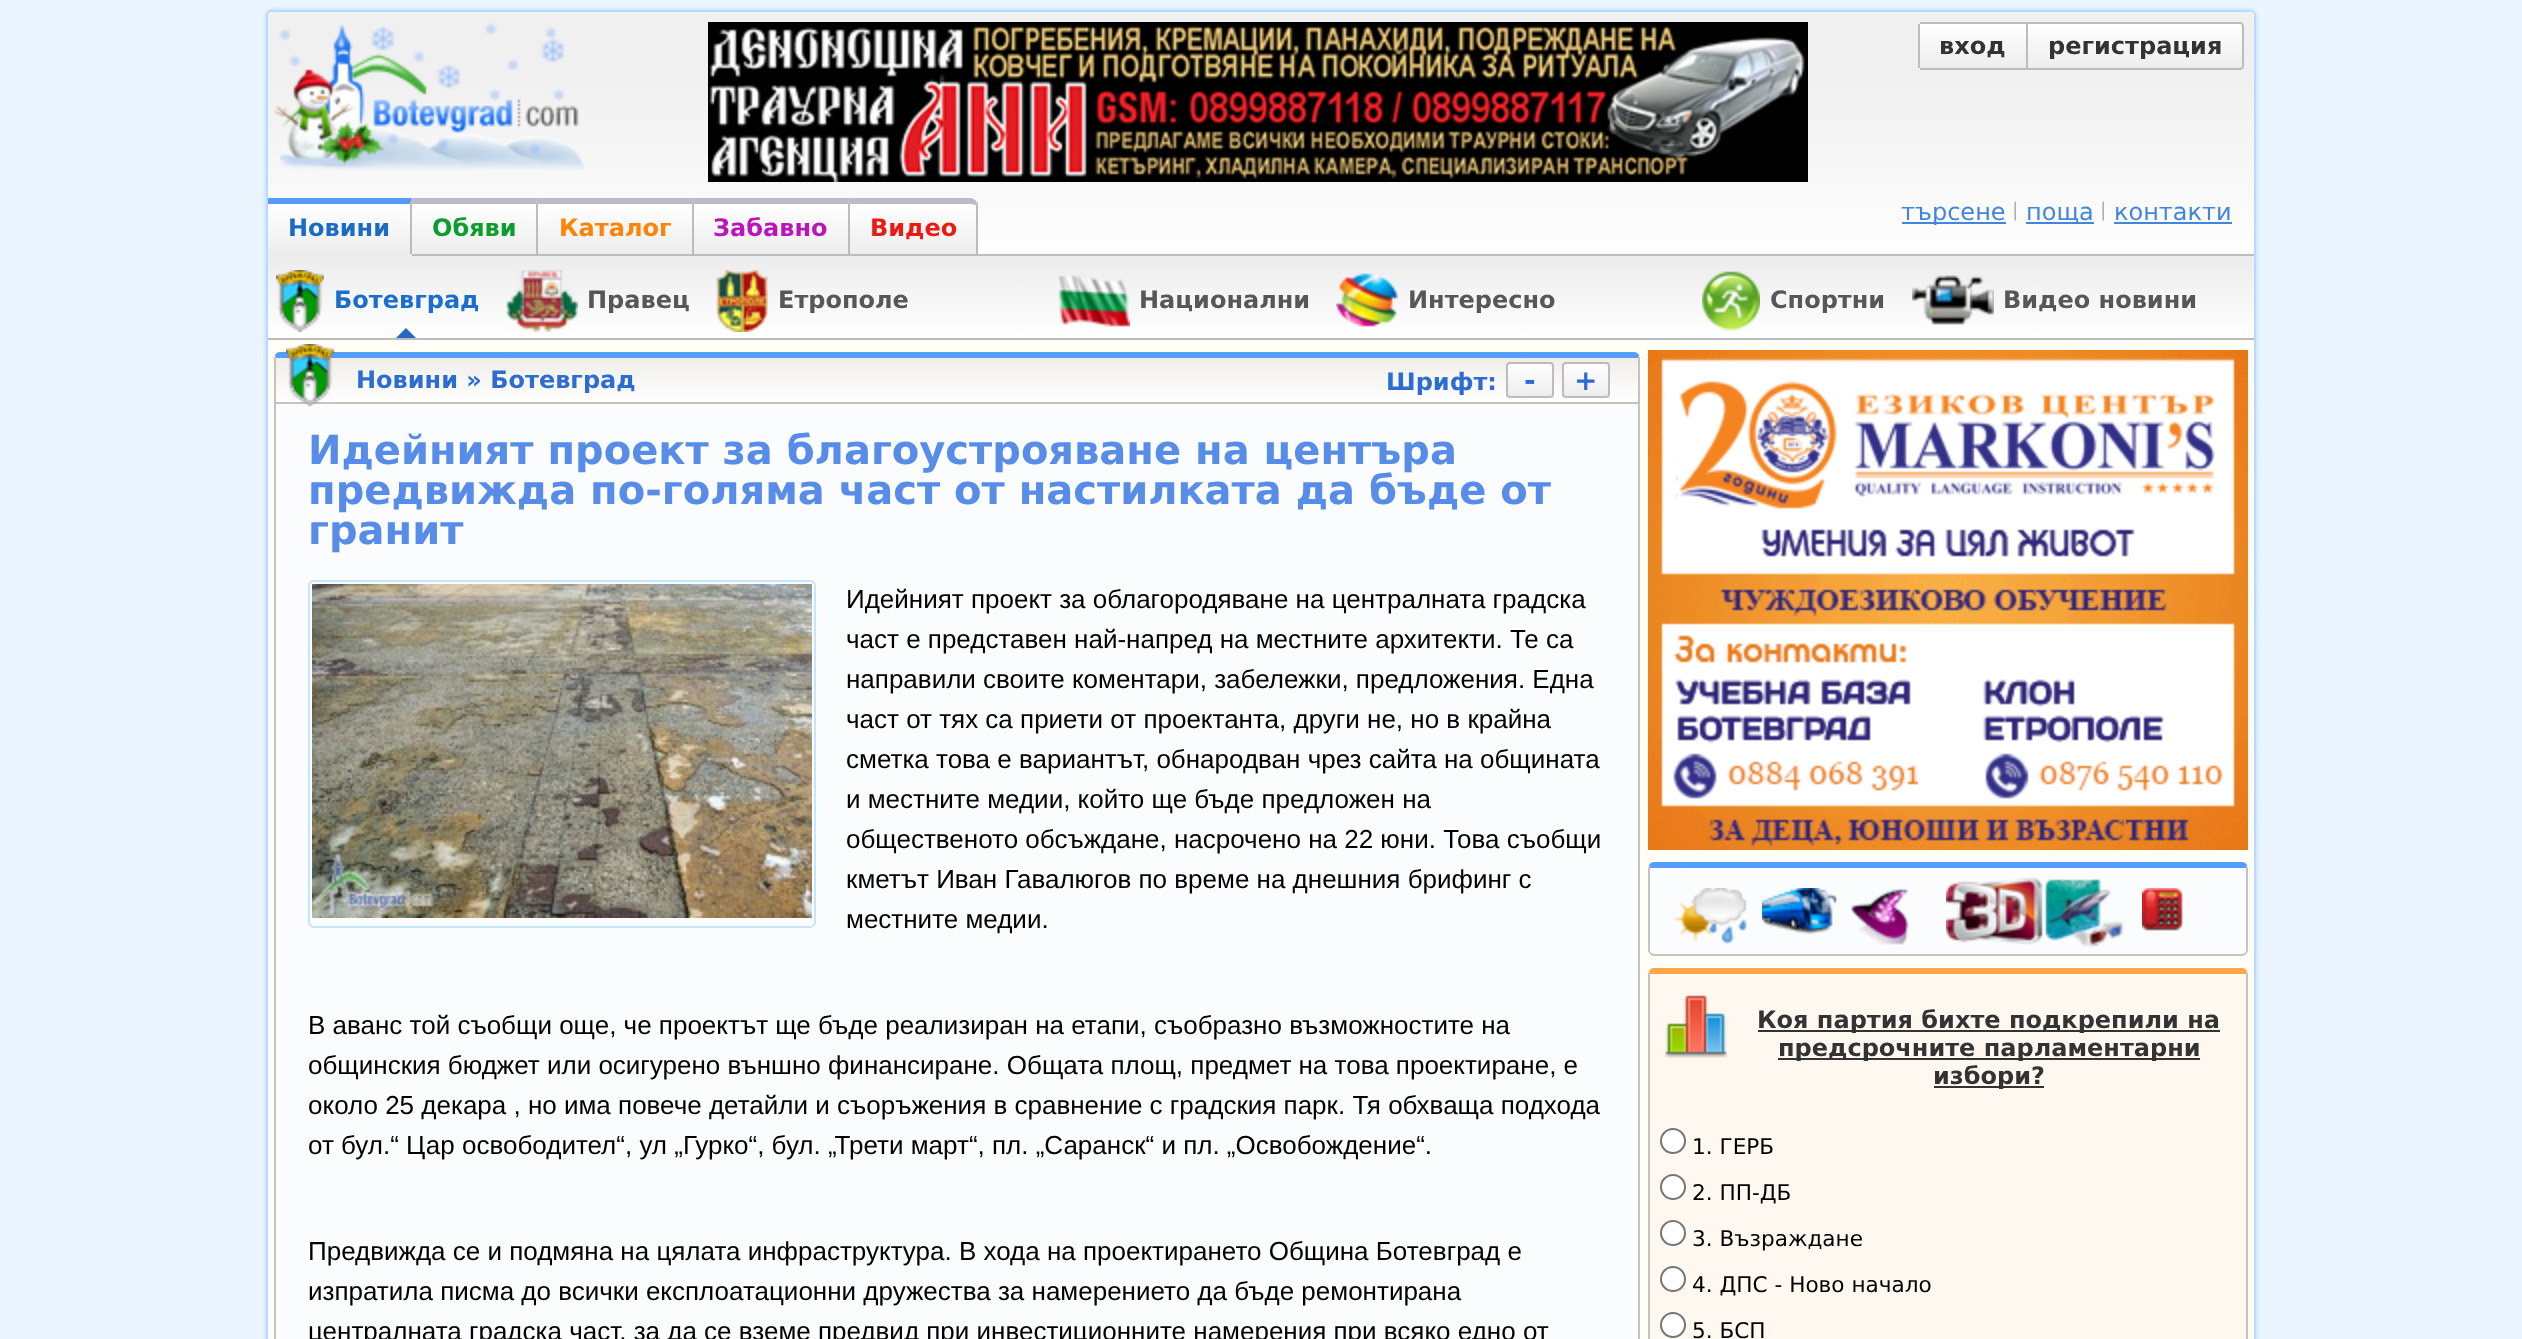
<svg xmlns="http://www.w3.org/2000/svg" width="2522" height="1339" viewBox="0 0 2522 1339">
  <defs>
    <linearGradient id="g1" gradientUnits="userSpaceOnUse" x1="1261" y1="12" x2="1261" y2="256"><stop offset="0.26" stop-color="rgb(240,240,240)"/><stop offset="1" stop-color="rgb(254,254,254)"/></linearGradient>
    <clipPath id="clip1"><path d="M1922 22H2026V70H1922C1920 70 1918 68 1918 66V26C1918 24 1920 22 1922 22Z"/></clipPath>
    <linearGradient id="g2" gradientUnits="userSpaceOnUse" x1="1973" y1="-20" x2="1973" y2="24"><stop offset="0" stop-color="rgb(255,255,255)"/><stop offset="1" stop-color="rgb(237,237,237)"/></linearGradient>
    <linearGradient id="g3" gradientUnits="userSpaceOnUse" x1="1973" y1="24" x2="1973" y2="68"><stop offset="0" stop-color="rgb(255,255,255)"/><stop offset="1" stop-color="rgb(237,237,237)"/></linearGradient>
    <linearGradient id="g4" gradientUnits="userSpaceOnUse" x1="1973" y1="68" x2="1973" y2="112"><stop offset="0" stop-color="rgb(255,255,255)"/><stop offset="1" stop-color="rgb(237,237,237)"/></linearGradient>
    <linearGradient id="g5" gradientUnits="userSpaceOnUse" x1="2135" y1="24" x2="2135" y2="68"><stop offset="0" stop-color="rgb(255,255,255)"/><stop offset="1" stop-color="rgb(237,237,237)"/></linearGradient>
    <linearGradient id="g6" gradientUnits="userSpaceOnUse" x1="339" y1="204" x2="339" y2="254"><stop offset="0" stop-color="rgb(255,255,255)"/><stop offset="1" stop-color="rgb(237,237,237)"/></linearGradient>
    <linearGradient id="g7" gradientUnits="userSpaceOnUse" x1="474" y1="204" x2="474" y2="254"><stop offset="0" stop-color="rgb(255,255,255)"/><stop offset="1" stop-color="rgb(237,237,237)"/></linearGradient>
    <linearGradient id="g8" gradientUnits="userSpaceOnUse" x1="615" y1="204" x2="615" y2="254"><stop offset="0" stop-color="rgb(255,255,255)"/><stop offset="1" stop-color="rgb(237,237,237)"/></linearGradient>
    <linearGradient id="g9" gradientUnits="userSpaceOnUse" x1="771" y1="204" x2="771" y2="254"><stop offset="0" stop-color="rgb(255,255,255)"/><stop offset="1" stop-color="rgb(237,237,237)"/></linearGradient>
    <clipPath id="clip2"><path d="M850 198H970C974.5 198 978 201.5 978 206V256H850Z"/></clipPath>
    <linearGradient id="g10" gradientUnits="userSpaceOnUse" x1="913" y1="154" x2="913" y2="204"><stop offset="0" stop-color="rgb(255,255,255)"/><stop offset="1" stop-color="rgb(237,237,237)"/></linearGradient>
    <linearGradient id="g11" gradientUnits="userSpaceOnUse" x1="913" y1="204" x2="913" y2="254"><stop offset="0" stop-color="rgb(255,255,255)"/><stop offset="1" stop-color="rgb(237,237,237)"/></linearGradient>
    <linearGradient id="g12" gradientUnits="userSpaceOnUse" x1="1261" y1="256" x2="1261" y2="338"><stop offset="0" stop-color="rgb(236,236,236)"/><stop offset="1" stop-color="rgb(255,255,255)"/></linearGradient>
    <linearGradient id="g13" gradientUnits="userSpaceOnUse" x1="957" y1="358" x2="957" y2="402"><stop offset="0" stop-color="rgb(239,238,233)"/><stop offset="1" stop-color="rgb(255,255,255)"/></linearGradient>
    <clipPath id="clip3"><rect x="1506" y="362" width="48" height="36" rx="4"/></clipPath>
    <linearGradient id="g14" gradientUnits="userSpaceOnUse" x1="1530" y1="364" x2="1530" y2="396"><stop offset="0" stop-color="rgb(255,255,255)"/><stop offset="1" stop-color="rgb(237,237,237)"/></linearGradient>
    <clipPath id="clip4"><rect x="1562" y="362" width="48" height="36" rx="4"/></clipPath>
    <linearGradient id="g15" gradientUnits="userSpaceOnUse" x1="1586" y1="364" x2="1586" y2="396"><stop offset="0" stop-color="rgb(255,255,255)"/><stop offset="1" stop-color="rgb(237,237,237)"/></linearGradient>
  </defs>
  <rect width="100%" height="100%" fill="rgb(234,245,255)"/>
  <rect x="266" y="10" width="1990" height="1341" rx="6" fill="rgb(176,214,255)" filter="blur(2px)"/>
  <rect x="267" y="11" width="1988" height="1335" rx="5" fill="rgb(255,254,246)" stroke="rgb(184,218,255)" stroke-width="2"/>
  <rect x="268" y="12" width="1986" height="244" rx="6" fill="url(#g1)"/>
  <image x="273" y="22" width="312" height="149" href="pic1.png"/>
  <image x="708" y="22" width="1100" height="160" href="pic2.png"/>
  <g clip-path="url(#clip1)">
    <rect x="1918" y="22" width="2" height="2" fill="url(#g2)"/>
  </g>
  <rect x="1920" y="24" width="106" height="44" fill="url(#g3)"/>
  <g clip-path="url(#clip1)">
    <rect x="1918" y="68" width="2" height="2" fill="url(#g4)"/>
  </g>
  <rect x="1920" y="22" width="106" height="2" fill="rgb(188,188,188)"/>
  <rect x="1920" y="68" width="106" height="2" fill="rgb(188,188,188)"/>
  <rect x="1918" y="24" width="2" height="44" fill="rgb(188,188,188)"/>
  <text x="1939" y="54" font-family="DejaVu Sans" font-size="24" font-weight="bold" fill="rgb(51,51,51)">вход</text>
  <rect x="2028" y="24" width="216" height="44" fill="url(#g5)"/>
  <path d="M2027 23H2240C2241.5 23 2243 24.5 2243 26V66C2243 67.5 2241.5 69 2240 69H2027Z" fill="none" stroke="rgb(188,188,188)" stroke-width="2"/>
  <text x="2048" y="54" font-family="DejaVu Sans" font-size="24" font-weight="bold" fill="rgb(51,51,51)">регистрация</text>
  <rect x="1902" y="222" width="104" height="2" fill="rgb(66,133,220)"/>
  <text x="1901" y="220" font-family="DejaVu Sans" font-size="24" fill="rgb(66,133,220)">търсене</text>
  <text x="2012" y="216" font-family="DejaVu Sans" font-size="19" fill="rgb(176,176,176)">|</text>
  <rect x="2026" y="222" width="68" height="2" fill="rgb(66,133,220)"/>
  <text x="2026" y="220" font-family="DejaVu Sans" font-size="24" fill="rgb(66,133,220)">поща</text>
  <text x="2100" y="216" font-family="DejaVu Sans" font-size="19" fill="rgb(176,176,176)">|</text>
  <text x="2114" y="220" font-family="DejaVu Sans" font-size="24" fill="rgb(66,133,220)">контакти</text>
  <rect x="2114" y="222" width="118" height="2" fill="rgb(66,133,220)"/>
  <rect x="268" y="204" width="142" height="50" fill="url(#g6)"/>
  <path d="M268 198H412L410 204H268Z" fill="rgb(86,155,246)"/>
  <path d="M412 198V256L410 254V204Z" fill="rgb(188,188,188)"/>
  <rect x="268" y="254" width="144" height="2" fill="rgb(236,236,236)"/>
  <text x="288" y="236" font-family="DejaVu Sans" font-size="24" font-weight="bold" fill="rgb(27,106,198)">Новини</text>
  <rect x="412" y="204" width="124" height="50" fill="url(#g7)"/>
  <path d="M412 198H538L536 204H412Z" fill="rgb(189,187,198)"/>
  <path d="M538 198V256L536 254V204Z" fill="rgb(188,188,188)"/>
  <rect x="412" y="254" width="126" height="2" fill="rgb(188,188,188)"/>
  <text x="432" y="236" font-family="DejaVu Sans" font-size="24" font-weight="bold" fill="rgb(13,157,44)">Обяви</text>
  <rect x="538" y="204" width="154" height="50" fill="url(#g8)"/>
  <path d="M538 198H694L692 204H538Z" fill="rgb(189,187,198)"/>
  <path d="M694 198V256L692 254V204Z" fill="rgb(188,188,188)"/>
  <rect x="538" y="254" width="156" height="2" fill="rgb(188,188,188)"/>
  <text x="559" y="236" font-family="DejaVu Sans" font-size="24" font-weight="bold" fill="rgb(255,131,4)">Каталог</text>
  <rect x="694" y="204" width="154" height="50" fill="url(#g9)"/>
  <path d="M694 198H850L848 204H694Z" fill="rgb(189,187,198)"/>
  <path d="M850 198V256L848 254V204Z" fill="rgb(188,188,188)"/>
  <rect x="694" y="254" width="156" height="2" fill="rgb(188,188,188)"/>
  <text x="713" y="236" font-family="DejaVu Sans" font-size="24" font-weight="bold" fill="rgb(186,20,188)">Забавно</text>
  <g clip-path="url(#clip2)">
    <rect x="970" y="198" width="8" height="6" fill="url(#g10)"/>
  </g>
  <rect x="850" y="204" width="128" height="50" fill="url(#g11)"/>
  <path d="M850 198V204H970C972 204 975 205 976 205L977 202C975 200 973 198 970 198Z" fill="rgb(189,187,198)"/>
  <rect x="976" y="254" width="1278" height="2" fill="rgb(188,188,188)"/>
  <path d="M976 254V206V205L977 202C978 203 978 205 978 206V256Z" fill="rgb(188,188,188)"/>
  <path d="M978 256L976 254H850V256Z" fill="rgb(188,188,188)"/>
  <text x="870" y="236" font-family="DejaVu Sans" font-size="24" font-weight="bold" fill="rgb(237,26,19)">Видео</text>
  <rect x="268" y="256" width="1986" height="82" fill="url(#g12)"/>
  <rect x="268" y="338" width="1986" height="2" fill="rgb(188,188,188)"/>
  <image x="276" y="270" width="48" height="62" href="pic3.png"/>
  <text x="334" y="308" font-family="DejaVu Sans" font-size="24" font-weight="bold" fill="rgb(26,110,206)">Ботевград</text>
  <path d="M416 338H396L406 328Z" fill="rgb(35,104,197)"/>
  <image x="506" y="270" width="72" height="62" href="pic4.png"/>
  <text x="587" y="308" font-family="DejaVu Sans" font-size="24" font-weight="bold" fill="rgb(87,87,87)">Правец</text>
  <image x="716" y="270" width="52" height="62" href="pic5.png"/>
  <text x="778" y="308" font-family="DejaVu Sans" font-size="24" font-weight="bold" fill="rgb(87,87,87)">Етрополе</text>
  <image x="1056" y="275" width="74" height="52" href="pic6.png"/>
  <text x="1139" y="308" font-family="DejaVu Sans" font-size="24" font-weight="bold" fill="rgb(87,87,87)">Национални</text>
  <image x="1336" y="273" width="62" height="54" href="pic7.png"/>
  <text x="1408" y="308" font-family="DejaVu Sans" font-size="24" font-weight="bold" fill="rgb(87,87,87)">Интересно</text>
  <image x="1702" y="271" width="58" height="60" href="pic8.png"/>
  <text x="1770" y="308" font-family="DejaVu Sans" font-size="24" font-weight="bold" fill="rgb(87,87,87)">Спортни</text>
  <image x="1912" y="275" width="82" height="50" href="pic9.png"/>
  <text x="2003" y="308" font-family="DejaVu Sans" font-size="24" font-weight="bold" fill="rgb(87,87,87)">Видео новини</text>
  <path d="M280 358H1638V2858C1638 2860 1636 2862 1634 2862H280C278 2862 276 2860 276 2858V358Z" fill="rgb(250,252,253)"/>
  <path d="M280 352C278 352 276 353 275 355L276 358H1638L1639 355C1638 353 1636 352 1634 352Z" fill="rgb(85,157,255)"/>
  <path d="M1640 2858V358L1639 355L1638 358V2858C1638 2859 1638 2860 1637 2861L1638 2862C1639 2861 1640 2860 1640 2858Z" fill="rgb(196,195,190)"/>
  <path d="M274 358V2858C274 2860 275 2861 276 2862L277 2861C276 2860 276 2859 276 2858V358L275 355Z" fill="rgb(196,195,190)"/>
  <rect x="276" y="358" width="1362" height="44" fill="url(#g13)"/>
  <rect x="276" y="402" width="1362" height="2" fill="rgb(196,195,190)"/>
  <image x="286" y="344" width="49" height="63" href="pic10.png"/>
  <g font-family="DejaVu Sans" font-size="24" font-weight="bold" fill="rgb(45,109,209)">
    <text x="356" y="388">Новини » Ботевград</text>
    <text x="1386" y="390">Шрифт:</text>
  </g>
  <g clip-path="url(#clip3)">
    <rect x="1506" y="364" width="48" height="32" fill="url(#g14)"/>
  </g>
  <rect x="1507" y="363" width="46" height="34" rx="3" fill="none" stroke="rgb(188,188,188)" stroke-width="2"/>
  <text x="1524" y="390" font-family="DejaVu Sans" font-size="28" font-weight="bold" fill="rgb(45,109,209)">-</text>
  <g clip-path="url(#clip4)">
    <rect x="1562" y="364" width="48" height="32" fill="url(#g15)"/>
  </g>
  <rect x="1563" y="363" width="46" height="34" rx="3" fill="none" stroke="rgb(188,188,188)" stroke-width="2"/>
  <text x="1574" y="390" font-family="DejaVu Sans" font-size="28" font-weight="bold" fill="rgb(45,109,209)">+</text>
  <g font-family="DejaVu Sans" font-size="40" font-weight="bold" fill="rgb(87,140,232)">
    <text>
      <tspan x="308" y="464">Идейният проект за благоустрояване на центъра</tspan>
      <tspan x="308" y="504">предвижда по-голяма част от настилката да бъде от</tspan>
      <tspan x="308" y="544">гранит</tspan>
    </text>
  </g>
  <rect x="309" y="581" width="506" height="346" rx="5" fill="none" stroke="rgb(196,230,248)" stroke-width="2"/>
  <image x="312" y="584" width="500" height="334" href="pic11.png"/>
  <g font-family="Liberation Sans" font-size="26" fill="rgb(0,0,0)">
    <text>
      <tspan x="846" y="608">Идейният проект за облагородяване на централната градска</tspan>
      <tspan x="846" y="648">част е представен най-напред на местните архитекти. Те са</tspan>
      <tspan x="846" y="688">направили своите коментари, забележки, предложения. Една</tspan>
      <tspan x="846" y="728">част от тях са приети от проектанта, други не, но в крайна</tspan>
      <tspan x="846" y="768">сметка това е вариантът, обнародван чрез сайта на общината</tspan>
      <tspan x="846" y="808">и местните медии, който ще бъде предложен на</tspan>
      <tspan x="846" y="848">общественото обсъждане, насрочено на 22 юни. Това съобщи</tspan>
      <tspan x="846" y="888">кметът Иван Гавалюгов по време на днешния брифинг с</tspan>
      <tspan x="846" y="928">местните медии.</tspan>
    </text>
    <text>
      <tspan x="308" y="1034">В аванс той съобщи още, че проектът ще бъде реализиран на етапи, съобразно възможностите на</tspan>
      <tspan x="308" y="1074">общинския бюджет или осигурено външно финансиране. Общата площ, предмет на това проектиране, е</tspan>
      <tspan x="308" y="1114">около 25 декара , но има повече детайли и съоръжения в сравнение с градския парк. Тя обхваща подхода</tspan>
      <tspan x="308" y="1154">от бул.“ Цар освободител“, ул „Гурко“, бул. „Трети март“, пл. „Саранск“ и пл. „Освобождение“.</tspan>
    </text>
    <text>
      <tspan x="308" y="1260">Предвижда се и подмяна на цялата инфраструктура. В хода на проектирането Община Ботевград е</tspan>
      <tspan x="308" y="1300">изпратила писма до всички експлоатационни дружества за намерението да бъде ремонтирана</tspan>
      <tspan x="308" y="1340">централната градска част, за да се вземе предвид при инвестиционните намерения при всяко едно от</tspan>
    </text>
  </g>
  <image x="1648" y="350" width="600" height="500" href="pic12.png"/>
  <path d="M1654 868H2246V950C2246 952 2244 954 2242 954H1654C1652 954 1650 952 1650 950V868Z" fill="rgb(250,252,253)"/>
  <path d="M1654 862C1652 862 1650 863 1649 865L1650 868H2246L2247 865C2246 863 2244 862 2242 862Z" fill="rgb(85,157,255)"/>
  <path d="M2248 950V868L2247 865L2246 868V950C2246 951 2246 952 2245 953L2246 954C2247 953 2248 952 2248 950Z" fill="rgb(196,195,190)"/>
  <path d="M1654 956H2242C2244 956 2245 955 2246 954L2245 953L2242 954H1654L1651 953L1650 954C1651 955 1652 956 1654 956Z" fill="rgb(196,195,190)"/>
  <path d="M1648 868V951L1650 954L1651 953C1650 952 1650 951 1650 950V868L1649 865Z" fill="rgb(196,195,190)"/>
  <image x="1674" y="888" width="73" height="57" href="pic13.png"/>
  <image x="1762" y="888" width="75" height="47" href="pic14.png"/>
  <image x="1850" y="888" width="60" height="57" href="pic15.png"/>
  <image x="1946" y="878" width="178" height="70" href="pic16.png"/>
  <image x="2142" y="888" width="41" height="43" href="pic17.png"/>
  <path d="M1654 974H2246V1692C2246 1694 2244 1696 2242 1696H1654C1652 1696 1650 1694 1650 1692V974Z" fill="rgb(255,248,240)"/>
  <path d="M1654 968C1652 968 1650 969 1649 971L1650 974H2246L2247 971C2246 969 2244 968 2242 968Z" fill="rgb(255,167,70)"/>
  <path d="M2248 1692V974L2247 971L2246 974V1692C2246 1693 2246 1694 2245 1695L2246 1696C2247 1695 2248 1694 2248 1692Z" fill="rgb(196,195,190)"/>
  <path d="M1648 974V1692C1648 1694 1649 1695 1650 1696L1651 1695C1650 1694 1650 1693 1650 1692V974L1649 971Z" fill="rgb(196,195,190)"/>
  <image x="1664" y="995" width="64" height="63" href="pic18.png"/>
  <rect x="1758" y="1030" width="462" height="2" fill="rgb(51,51,51)"/>
  <text x="1757" y="1028" font-family="DejaVu Sans" font-size="24" font-weight="bold" fill="rgb(51,51,51)">Коя партия бихте подкрепили на</text>
  <rect x="1778" y="1058" width="422" height="2" fill="rgb(51,51,51)"/>
  <text x="1778" y="1056" font-family="DejaVu Sans" font-size="24" font-weight="bold" fill="rgb(51,51,51)">предсрочните парламентарни</text>
  <rect x="1934" y="1086" width="110" height="2" fill="rgb(51,51,51)"/>
  <text x="1933" y="1084" font-family="DejaVu Sans" font-size="24" font-weight="bold" fill="rgb(51,51,51)">избори?</text>
  <circle cx="1673" cy="1141" r="12" fill="rgb(255,255,255)" stroke="rgb(118,118,118)" stroke-width="2"/>
  <text x="1692" y="1154" font-family="DejaVu Sans" font-size="21.6" fill="rgb(0,0,0)">1. ГЕРБ</text>
  <circle cx="1673" cy="1187" r="12" fill="rgb(255,255,255)" stroke="rgb(118,118,118)" stroke-width="2"/>
  <text x="1692" y="1200" font-family="DejaVu Sans" font-size="21.6" fill="rgb(0,0,0)">2. ПП-ДБ</text>
  <circle cx="1673" cy="1233" r="12" fill="rgb(255,255,255)" stroke="rgb(118,118,118)" stroke-width="2"/>
  <text x="1692" y="1246" font-family="DejaVu Sans" font-size="21.6" fill="rgb(0,0,0)">3. Възраждане</text>
  <circle cx="1673" cy="1279" r="12" fill="rgb(255,255,255)" stroke="rgb(118,118,118)" stroke-width="2"/>
  <text x="1692" y="1292" font-family="DejaVu Sans" font-size="21.6" fill="rgb(0,0,0)">4. ДПС - Ново начало</text>
  <circle cx="1673" cy="1325" r="12" fill="rgb(255,255,255)" stroke="rgb(118,118,118)" stroke-width="2"/>
  <text x="1692" y="1338" font-family="DejaVu Sans" font-size="21.6" fill="rgb(0,0,0)">5. БСП</text>
</svg>
